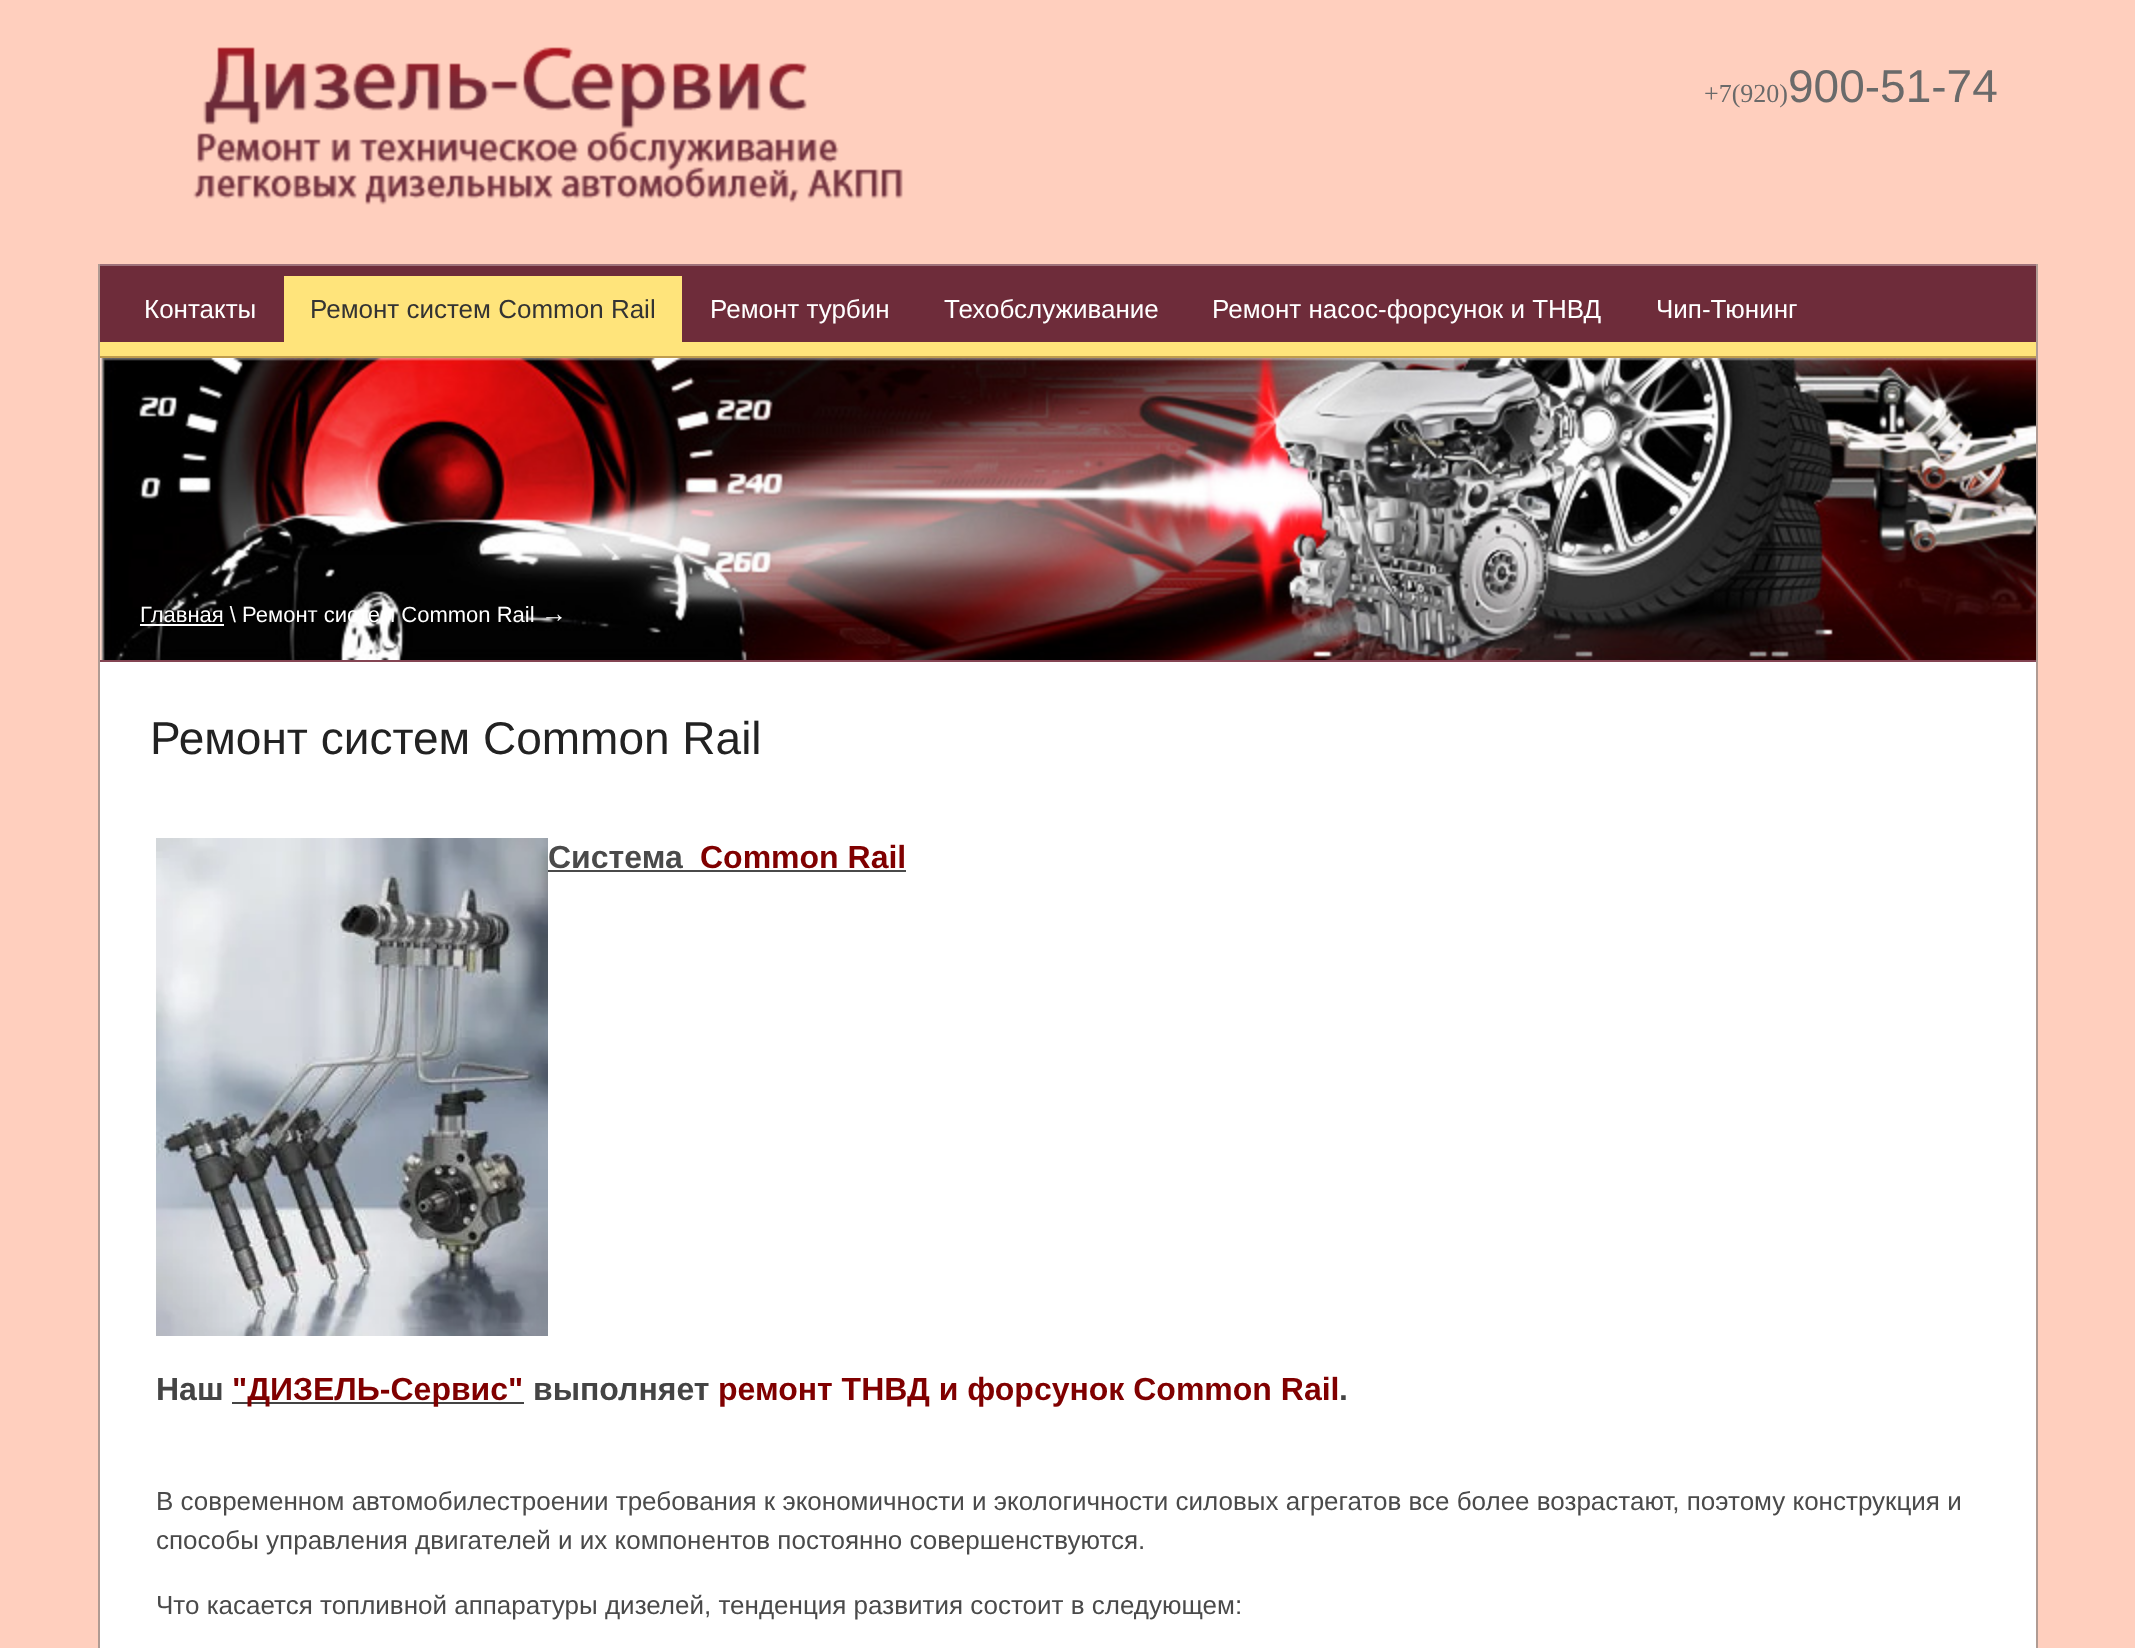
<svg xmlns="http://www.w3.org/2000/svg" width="2135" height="1648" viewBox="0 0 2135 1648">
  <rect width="100%" height="100%" fill="rgb(255,207,190)"/>
  <image x="193" y="47" width="710" height="158" href="pic1.png"/>
  <text x="1704" y="102" font-family="Liberation Serif" font-size="26" fill="rgb(106,106,106)">+7(920)</text>
  <text x="1788" y="102" font-family="Liberation Sans" font-size="46" fill="rgb(106,106,106)">900-51-74</text>
  <rect x="98" y="264" width="1940" height="2" fill="rgb(158,114,123)"/>
  <rect x="2036" y="264" width="2" height="1384" fill="rgb(176,155,147)"/>
  <rect x="98" y="264" width="2" height="1384" fill="rgb(176,155,147)"/>
  <rect x="100" y="266" width="1936" height="76" fill="rgb(110,44,58)"/>
  <rect x="100" y="342" width="1936" height="14" fill="rgb(255,228,123)"/>
  <text x="144" y="318" font-family="Liberation Sans" font-size="26" fill="rgb(255,255,255)">Контакты</text>
  <rect x="284" y="276" width="398" height="66" fill="rgb(255,228,123)"/>
  <text x="310" y="318" font-family="Liberation Sans" font-size="26" fill="rgb(51,51,51)">Ремонт систем Common Rail</text>
  <g font-family="Liberation Sans" font-size="26" fill="rgb(255,255,255)">
    <text x="710" y="318">Ремонт турбин</text>
    <text x="944" y="318">Техобслуживание</text>
    <text x="1212" y="318">Ремонт насос-форсунок и ТНВД</text>
    <text x="1656" y="318">Чип-Тюнинг</text>
  </g>
  <rect x="100" y="356" width="1936" height="2" fill="rgb(191,156,77)"/>
  <rect x="100" y="660" width="1936" height="2" fill="rgb(132,69,83)"/>
  <image x="100" y="358" width="1936" height="302" href="pic2.png"/>
  <text x="140" y="622" font-family="Liberation Sans" font-size="22" fill="rgb(255,255,255)">Главная \ Ремонт систем Common Rail</text>
  <rect x="140" y="624" width="84" height="2" fill="rgb(255,255,255)"/>
  <text x="541" y="622" font-family="Liberation Sans" font-size="26" fill="rgb(255,255,255)">→</text>
  <rect x="100" y="662" width="1936" height="986" fill="rgb(255,255,255)"/>
  <text x="150" y="754" font-family="Liberation Sans" font-size="46" fill="rgb(34,34,34)">Ремонт систем Common Rail</text>
  <image x="156" y="838" width="392" height="498" href="pic3.png"/>
  <text x="548" y="868" font-family="Liberation Sans" font-size="32" font-weight="bold" fill="rgb(74,74,74)">Система</text>
  <rect x="548" y="870" width="358" height="2" fill="rgb(74,74,74)"/>
  <text x="700" y="868" font-family="Liberation Sans" font-size="32" font-weight="bold" fill="rgb(128,0,0)">Common Rail</text>
  <text x="156" y="1400" font-family="Liberation Sans" font-size="32" font-weight="bold" fill="rgb(68,68,68)">Наш</text>
  <rect x="232" y="1402" width="292" height="2" fill="rgb(68,68,68)"/>
  <text x="232" y="1400" font-family="Liberation Sans" font-size="32" font-weight="bold" fill="rgb(128,0,0)">"ДИЗЕЛЬ-Сервис"</text>
  <text x="533" y="1400" font-family="Liberation Sans" font-size="32" font-weight="bold" fill="rgb(68,68,68)">выполняет</text>
  <text x="718" y="1400" font-family="Liberation Sans" font-size="32" font-weight="bold" fill="rgb(128,0,0)">ремонт ТНВД и форсунок Common Rail</text>
  <text x="1339" y="1400" font-family="Liberation Sans" font-size="32" font-weight="bold" fill="rgb(68,68,68)">.</text>
  <g font-family="Liberation Sans" font-size="26" fill="rgb(74,74,74)">
    <text>
      <tspan x="156" y="1510">В современном автомобилестроении требования к экономичности и экологичности силовых агрегатов все более возрастают, поэтому конструкция и</tspan>
      <tspan x="156" y="1549">способы управления двигателей и их компонентов постоянно совершенствуются.</tspan>
    </text>
    <text x="156" y="1614">Что касается топливной аппаратуры дизелей, тенденция развития состоит в следующем:</text>
  </g>
</svg>
